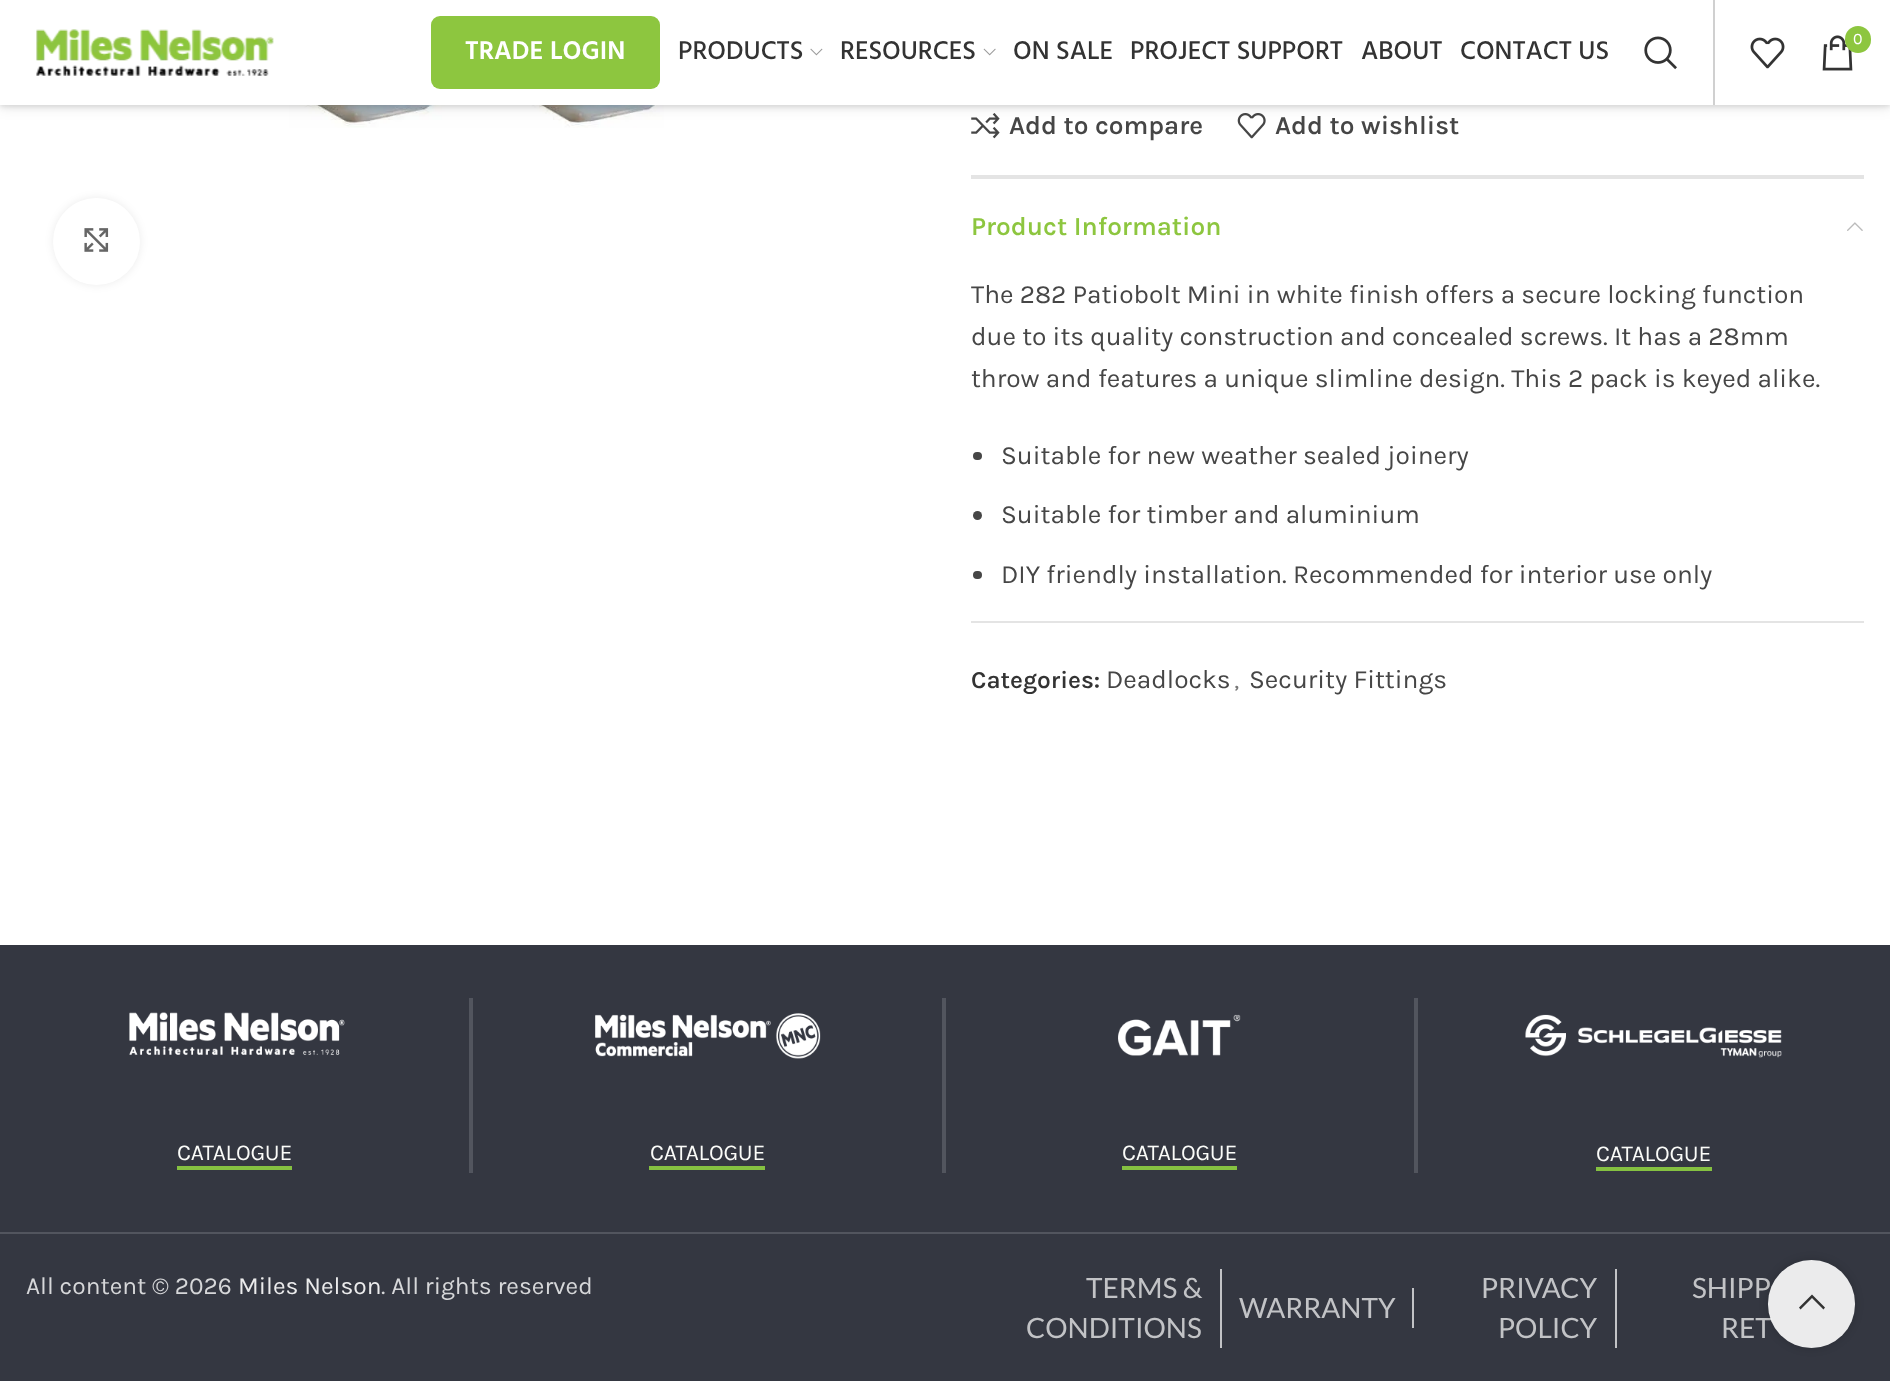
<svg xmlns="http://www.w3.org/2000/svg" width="1890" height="1381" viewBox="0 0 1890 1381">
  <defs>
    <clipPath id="clip1"><path d="M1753 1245H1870V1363H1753ZM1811.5 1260C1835.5 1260 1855 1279.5 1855 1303.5V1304.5C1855 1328.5 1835.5 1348 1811.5 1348C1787.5 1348 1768 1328.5 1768 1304.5V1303.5C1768 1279.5 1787.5 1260 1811.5 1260Z" clip-rule="evenodd"/></clipPath>
  </defs>
  <rect width="100%" height="100%" fill="rgb(255,255,255)"/>
  <image x="289" y="105" width="375" height="23" href="pic7.png"/>
  <image x="971" y="113" width="29" height="26" href="pic9.png"/>
  <image x="1237" y="113" width="29" height="26" href="pic10.png"/>
  <rect x="0" y="2" width="1890" height="105" fill="rgba(0,0,0,0.1)" filter="blur(2.5px)"/>
  <rect x="0" y="2" width="1890" height="105" fill="rgba(0,0,0,0.1)" filter="blur(7px)"/>
  <rect x="0" y="0" width="1890" height="105" fill="rgb(255,255,255)"/>
  <image x="36" y="29" width="238" height="47" href="pic1.png"/>
  <rect x="431" y="16" width="229" height="73" rx="9" fill="rgb(141,198,63)"/>
  <text x="465" y="59" font-family="Hind" font-size="26.25" font-weight="600" fill="rgb(255,255,255)">TRADE LOGIN</text>
  <text x="678" y="59" font-family="Hind" font-size="26.25" font-weight="500" fill="rgb(51,51,51)">PRODUCTS</text>
  <image x="810" y="48" width="13" height="8" href="pic2.png"/>
  <text x="840" y="59" font-family="Hind" font-size="26.25" font-weight="500" fill="rgb(51,51,51)">RESOURCES</text>
  <image x="983" y="48" width="13" height="8" href="pic3.png"/>
  <g font-family="Hind" font-size="26.25" font-weight="500" fill="rgb(51,51,51)">
    <text x="1013" y="59">ON SALE</text>
    <text x="1130" y="59">PROJECT SUPPORT</text>
    <text x="1361" y="59">ABOUT</text>
    <text x="1460" y="59">CONTACT US</text>
  </g>
  <image x="1644" y="36" width="33" height="34" href="pic4.png"/>
  <rect x="1713" y="0" width="2" height="105" fill="rgb(208,208,208)"/>
  <image x="1750" y="37" width="35" height="32" href="pic5.png"/>
  <image x="1822" y="35" width="31" height="36" href="pic6.png"/>
  <rect x="1845" y="26" width="26" height="27" rx="13" fill="rgb(141,198,63)"/>
  <text x="1853" y="44" font-family="Karla" font-size="16" fill="rgb(255,255,255)">0</text>
  <rect x="53" y="198" width="87" height="87" rx="43.5" fill="rgba(0,0,0,0.08)" filter="blur(4.5px)"/>
  <circle cx="96.5" cy="241.5" r="43.5" fill="rgb(255,255,255)"/>
  <image x="84" y="228" width="25" height="24" href="pic8.png"/>
  <g font-family="Karla" font-size="26.25" font-weight="600" fill="rgb(70,70,70)">
    <text x="1009" y="134">Add to compare</text>
    <text x="1275" y="134">Add to wishlist</text>
  </g>
  <rect x="971" y="175" width="893" height="4" fill="rgb(228,228,228)"/>
  <rect x="971" y="621" width="893" height="2" fill="rgb(228,228,228)"/>
  <text x="971" y="235" font-family="Karla" font-size="26.25" font-weight="600" fill="rgb(141,198,63)">Product Information</text>
  <image x="1847" y="222" width="16" height="9" href="pic11.png"/>
  <g font-family="Karla" font-size="26.25" fill="rgb(70,70,70)">
    <text>
      <tspan x="971" y="303">The 282 Patiobolt Mini in white finish offers a secure locking function</tspan>
      <tspan x="971" y="345">due to its quality construction and concealed screws. It has a 28mm</tspan>
      <tspan x="971" y="387">throw and features a unique slimline design. This 2 pack is keyed alike.</tspan>
    </text>
  </g>
  <rect x="973" y="452" width="9" height="8" rx="4" fill="rgb(70,70,70)"/>
  <text x="1001" y="464" font-family="Karla" font-size="26.25" fill="rgb(70,70,70)">Suitable for new weather sealed joinery</text>
  <circle cx="977.5" cy="515.5" r="4.5" fill="rgb(70,70,70)"/>
  <text x="1001" y="523" font-family="Karla" font-size="26.25" fill="rgb(70,70,70)">Suitable for timber and aluminium</text>
  <rect x="973" y="571" width="9" height="8" rx="4" fill="rgb(70,70,70)"/>
  <text x="1001" y="583" font-family="Karla" font-size="26.25" fill="rgb(70,70,70)">DIY friendly installation. Recommended for interior use only</text>
  <text x="971" y="688" font-family="Karla" font-size="24.5" font-weight="600" fill="rgb(51,51,51)">Categories:</text>
  <text x="1106" y="688" font-family="Karla" font-size="26.25" fill="rgb(70,70,70)">Deadlocks</text>
  <text x="1234" y="688" font-family="Karla" font-size="24.5" fill="rgb(119,119,119)">,</text>
  <text x="1249" y="688" font-family="Karla" font-size="26.25" fill="rgb(70,70,70)">Security Fittings</text>
  <rect x="0" y="945" width="1890" height="436" fill="rgb(52,55,65)"/>
  <rect x="469" y="998" width="4" height="175" fill="rgb(82,85,94)"/>
  <image x="129" y="1012" width="216" height="43" href="pic12.png"/>
  <rect x="177" y="1166" width="115" height="4" fill="rgb(133,193,65)"/>
  <text x="177" y="1160" font-family="Karla" font-size="22.75" letter-spacing="-0.25" fill="rgb(251,252,249)">CATALOGUE</text>
  <rect x="942" y="998" width="4" height="175" fill="rgb(82,85,94)"/>
  <image x="595" y="1013" width="226" height="46" href="pic13.png"/>
  <rect x="649" y="1166" width="116" height="4" fill="rgb(133,193,65)"/>
  <text x="650" y="1160" font-family="Karla" font-size="22.75" letter-spacing="-0.25" fill="rgb(251,252,249)">CATALOGUE</text>
  <rect x="1414" y="998" width="4" height="175" fill="rgb(82,85,94)"/>
  <image x="1118" y="1014" width="123" height="42" href="pic14.png"/>
  <rect x="1122" y="1166" width="115" height="4" fill="rgb(133,193,65)"/>
  <text x="1122" y="1160" font-family="Karla" font-size="22.75" letter-spacing="-0.25" fill="rgb(251,252,249)">CATALOGUE</text>
  <image x="1525" y="1014" width="257" height="44" href="pic15.png"/>
  <rect x="1596" y="1167" width="116" height="4" fill="rgb(133,193,65)"/>
  <text x="1596" y="1161" font-family="Karla" font-size="22.75" letter-spacing="-0.25" fill="rgb(251,252,249)">CATALOGUE</text>
  <rect x="0" y="1232" width="1890" height="2" fill="rgb(82,85,94)"/>
  <text x="26" y="1294" font-family="Karla" font-size="24.5" fill="rgb(214,215,217)">All content © 2026</text>
  <text x="238" y="1294" font-family="Karla" font-size="24.5" fill="rgb(235,235,236)">Miles Nelson</text>
  <text x="381" y="1294" font-family="Karla" font-size="24.5" fill="rgb(214,215,217)">. All rights reserved</text>
  <rect x="1220" y="1269" width="2" height="79" fill="rgb(194,195,198)"/>
  <g font-family="Lato" font-size="28" fill="rgb(194,195,198)">
    <text x="1086" y="1298">TERMS &amp;</text>
    <text x="1026" y="1338">CONDITIONS</text>
  </g>
  <rect x="1412" y="1288" width="2" height="40" fill="rgb(194,195,198)"/>
  <text x="1239" y="1318" font-family="Lato" font-size="28" fill="rgb(194,195,198)">WARRANTY</text>
  <rect x="1615" y="1269" width="2" height="79" fill="rgb(194,195,198)"/>
  <g font-family="Lato" font-size="28" fill="rgb(194,195,198)">
    <text x="1481" y="1298">PRIVACY</text>
    <text x="1498" y="1338">POLICY</text>
    <text x="1692" y="1298">SHIPP</text>
    <text x="1721" y="1338">RET</text>
  </g>
  <g clip-path="url(#clip1)">
    <rect x="1768" y="1260" width="87" height="88" rx="43.5" fill="rgba(0,0,0,0.17)" filter="blur(4.5px)"/>
  </g>
  <rect x="1768" y="1260" width="87" height="88" rx="43.5" fill="rgba(255,255,255,0.9)"/>
  <path d="M1823.5 1309.5L1825 1307.5L1812 1294.5L1799 1307.5L1800.5 1309.5L1812 1298Z" fill="rgb(51,51,51)"/>
</svg>
